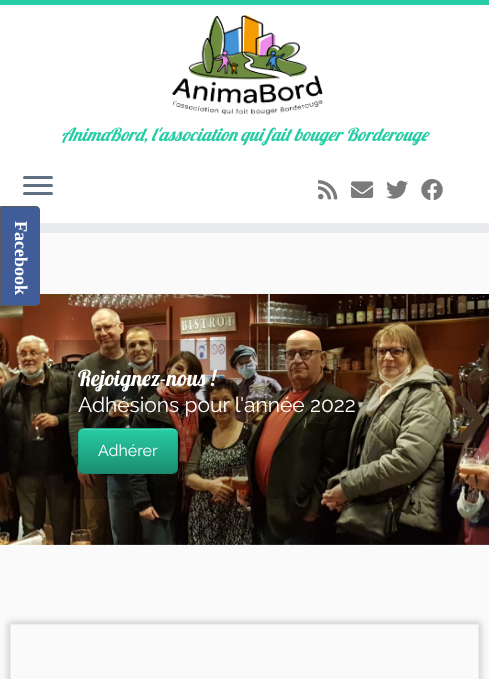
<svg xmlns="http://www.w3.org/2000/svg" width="489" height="679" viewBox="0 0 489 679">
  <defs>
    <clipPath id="clip1"><rect x="78" y="428" width="100" height="46" rx="6"/></clipPath>
    <linearGradient id="g1" gradientUnits="userSpaceOnUse" x1="128" y1="429" x2="128" y2="473"><stop offset="0" stop-color="rgb(39,205,165)"/><stop offset="1" stop-color="rgb(27,141,113)"/></linearGradient>
    <clipPath id="clip2"><path d="M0 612H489V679H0ZM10 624H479V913H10Z" clip-rule="evenodd"/></clipPath>
  </defs>
  <rect width="100%" height="100%" fill="rgb(250,250,250)"/>
  <rect x="0" y="5" width="489" height="218" fill="rgb(255,255,255)"/>
  <image x="0" y="294" width="489" height="251" href="pic6.png"/>
  <path d="M.5 206.5H36C38 206.5 39.5 208 39.5 210V302C39.5 304 38 305.5 36 305.5H.5Z" fill="rgb(64,93,154)" stroke="rgb(90,90,90)"/>
  <text x="15" y="221" transform="rotate(90 15 221)" font-family="Liberation Serif" font-size="18" font-weight="bold" fill="rgb(255,255,255)">Facebook</text>
  <rect x="0" y="0" width="489" height="5" fill="rgb(39,205,165)"/>
  <rect x="40" y="223" width="449" height="10" fill="rgb(233,234,238)"/>
  <image x="172" y="15" width="151" height="100" href="pic1.png"/>
  <text x="61" y="141" font-family="Lobster" font-size="18" font-style="italic" fill="rgb(39,205,165)">AnimaBord, l'association qui fait bouger Borderouge</text>
  <rect x="23" y="176" width="30" height="3" rx="1.5" fill="rgb(95,111,129)"/>
  <rect x="23" y="184" width="30" height="3" rx="1.5" fill="rgb(95,111,129)"/>
  <rect x="23" y="192" width="30" height="3" rx="1.5" fill="rgb(95,111,129)"/>
  <image x="318" y="180" width="20" height="20" href="pic2.png"/>
  <image x="351" y="181" width="23" height="17" href="pic3.png"/>
  <image x="386" y="180" width="22" height="19" href="pic4.png"/>
  <image x="421" y="179" width="22" height="22" href="pic5.png"/>
  <rect x="54" y="340" width="326" height="159" fill="rgba(0,0,0,0.2)"/>
  <text x="78" y="386" font-family="Lobster" font-size="22" fill="rgb(255,255,255)">Rejoignez-nous !</text>
  <text x="78" y="412" font-family="Raleway" font-size="21" font-weight="100" fill="rgb(255,255,255)">Adhésions pour l'année 2022</text>
  <rect x="78" y="428" width="100" height="46" rx="6" fill="rgb(34,179,144)"/>
  <g clip-path="url(#clip1)">
    <rect x="78" y="429" width="100" height="44" fill="url(#g1)"/>
  </g>
  <path d="M84 430H172C175 430 177 432 177 435C177 425 163 429 157 429H99C93 429 79 425 79 435C79 432 81 430 84 430Z" fill="rgba(255,255,255,0.2)"/>
  <path d="M176 472L172.5 473.5H83.5L80 472" fill="none" stroke="rgba(0,0,0,0.25)"/>
  <path d="M80 472C77.5 469.5 78.5 465.5 78.5 462.5V451C78.5 426.5 74.5 428.5 98.5 428.5H157.5C181.5 428.5 177.5 426.5 177.5 451V462.5C177.5 465.5 178.5 469.5 176 472" fill="none" stroke="rgba(0,0,0,0.1)"/>
  <text x="98" y="456" font-family="Raleway" font-size="16" font-weight="100" fill="rgb(255,255,255)">Adhérer</text>
  <text x="449" y="451" font-family="Liberation Sans" font-size="120" fill="rgb(69,51,36)">›</text>
  <g clip-path="url(#clip2)">
    <rect x="8" y="622" width="473" height="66" fill="rgb(204,204,204)" filter="blur(3px)"/>
  </g>
  <rect x="10" y="624" width="469" height="1" fill="rgb(238,238,238)"/>
  <path d="M479 624V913L478 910V625Z" fill="rgb(238,238,238)"/>
  <path d="M10 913V624L11 625V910Z" fill="rgb(238,238,238)"/>
</svg>
